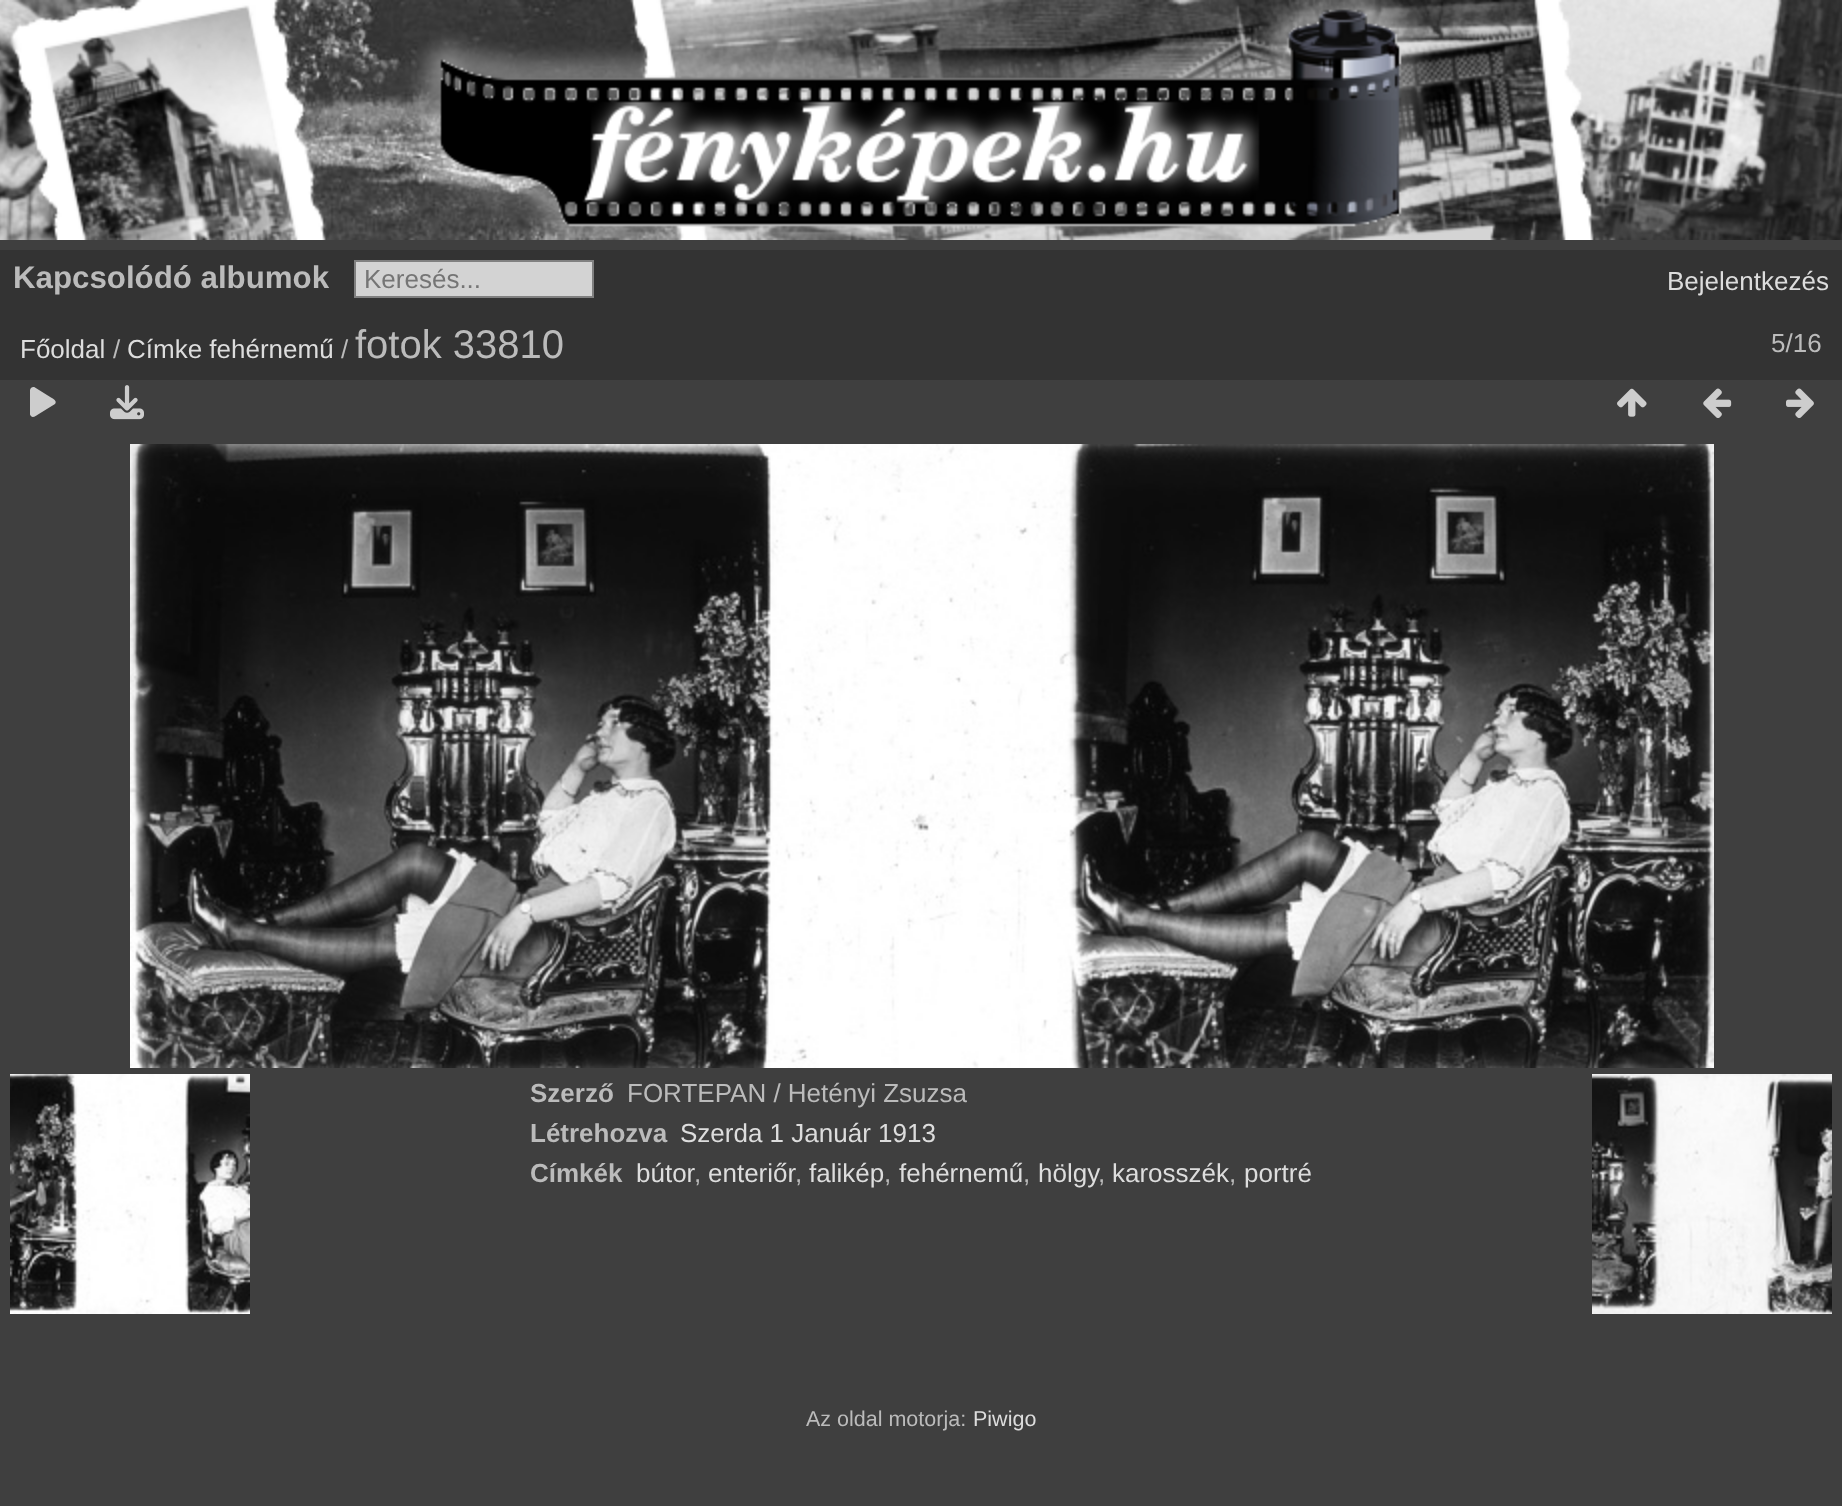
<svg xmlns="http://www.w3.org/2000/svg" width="1842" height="1506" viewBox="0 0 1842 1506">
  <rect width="100%" height="100%" fill="rgb(63,63,63)"/>
  <rect x="0" y="222" width="1502" height="18" fill="rgb(212,212,212)"/>
  <image x="0" y="0" width="1842" height="240" href="pic1.png"/>
  <rect x="0" y="250" width="1842" height="130" fill="rgb(51,51,51)"/>
  <text x="13" y="288" font-family="Liberation Sans" font-size="31.25" font-weight="bold" fill="rgb(187,187,187)">Kapcsolódó albumok</text>
  <rect x="355" y="261" width="238" height="36" fill="rgb(211,211,211)" stroke="rgb(128,128,128)" stroke-width="2"/>
  <text x="364" y="288" font-family="Liberation Sans" font-size="26" fill="rgb(117,117,117)">Keresés...</text>
  <g font-family="Liberation Sans" font-size="26" fill="rgb(221,221,221)">
    <text x="1667" y="290">Bejelentkezés</text>
    <text x="20" y="358">Főoldal</text>
  </g>
  <text x="113" y="358" font-family="Liberation Sans" font-size="26" fill="rgb(187,187,187)">/</text>
  <text x="127" y="358" font-family="Liberation Sans" font-size="26" fill="rgb(221,221,221)">Címke fehérnemű</text>
  <text x="341" y="358" font-family="Liberation Sans" font-size="26" fill="rgb(187,187,187)">/</text>
  <text x="355" y="358" font-family="Liberation Sans" font-size="40" fill="rgb(187,187,187)">fotok 33810</text>
  <text x="1771" y="352" font-family="Liberation Sans" font-size="26" fill="rgb(187,187,187)">5/16</text>
  <path d="M35 387.5C33 386.5 30.5 387.5 30 390V414.5C31.5 419 36 416 38 414.5L55 404C57.5 401 53 398.5 51 397.5Z" fill="rgb(205,205,205)"/>
  <image x="110" y="385" width="34" height="35" href="pic2.png"/>
  <image x="1617" y="388" width="30" height="29" href="pic3.png"/>
  <image x="1703" y="388" width="29" height="30" href="pic4.png"/>
  <image x="1786" y="388" width="28" height="30" href="pic5.png"/>
  <image x="130" y="444" width="1584" height="624" href="pic6.png"/>
  <image x="10" y="1074" width="240" height="240" href="pic7.png"/>
  <image x="1592" y="1074" width="240" height="240" href="pic8.png"/>
  <text x="530" y="1102" font-family="Liberation Sans" font-size="26" font-weight="bold" fill="rgb(187,187,187)">Szerző</text>
  <text x="627" y="1102" font-family="Liberation Sans" font-size="26" fill="rgb(187,187,187)">FORTEPAN / Hetényi Zsuzsa</text>
  <text x="530" y="1142" font-family="Liberation Sans" font-size="26" font-weight="bold" fill="rgb(187,187,187)">Létrehozva</text>
  <text x="680" y="1142" font-family="Liberation Sans" font-size="26" fill="rgb(221,221,221)">Szerda 1 Január 1913</text>
  <text x="530" y="1182" font-family="Liberation Sans" font-size="26" font-weight="bold" fill="rgb(187,187,187)">Címkék</text>
  <text x="636" y="1182" font-family="Liberation Sans" font-size="26" fill="rgb(221,221,221)">bútor</text>
  <text x="694" y="1182" font-family="Liberation Sans" font-size="26" fill="rgb(187,187,187)">,</text>
  <text x="708" y="1182" font-family="Liberation Sans" font-size="26" fill="rgb(221,221,221)">enteriőr</text>
  <text x="795" y="1182" font-family="Liberation Sans" font-size="26" fill="rgb(187,187,187)">,</text>
  <text x="809" y="1182" font-family="Liberation Sans" font-size="26" fill="rgb(221,221,221)">falikép</text>
  <text x="884" y="1182" font-family="Liberation Sans" font-size="26" fill="rgb(187,187,187)">,</text>
  <text x="899" y="1182" font-family="Liberation Sans" font-size="26" fill="rgb(221,221,221)">fehérnemű</text>
  <text x="1023" y="1182" font-family="Liberation Sans" font-size="26" fill="rgb(187,187,187)">,</text>
  <text x="1038" y="1182" font-family="Liberation Sans" font-size="26" fill="rgb(221,221,221)">hölgy</text>
  <text x="1098" y="1182" font-family="Liberation Sans" font-size="26" fill="rgb(187,187,187)">,</text>
  <text x="1112" y="1182" font-family="Liberation Sans" font-size="26" fill="rgb(221,221,221)">karosszék</text>
  <text x="1229" y="1182" font-family="Liberation Sans" font-size="26" fill="rgb(187,187,187)">,</text>
  <text x="1244" y="1182" font-family="Liberation Sans" font-size="26" fill="rgb(221,221,221)">portré</text>
  <text x="806" y="1426" font-family="Liberation Sans" font-size="21.5" fill="rgb(187,187,187)">Az oldal motorja:</text>
  <text x="973" y="1426" font-family="Liberation Sans" font-size="21.5" fill="rgb(221,221,221)">Piwigo</text>
</svg>
